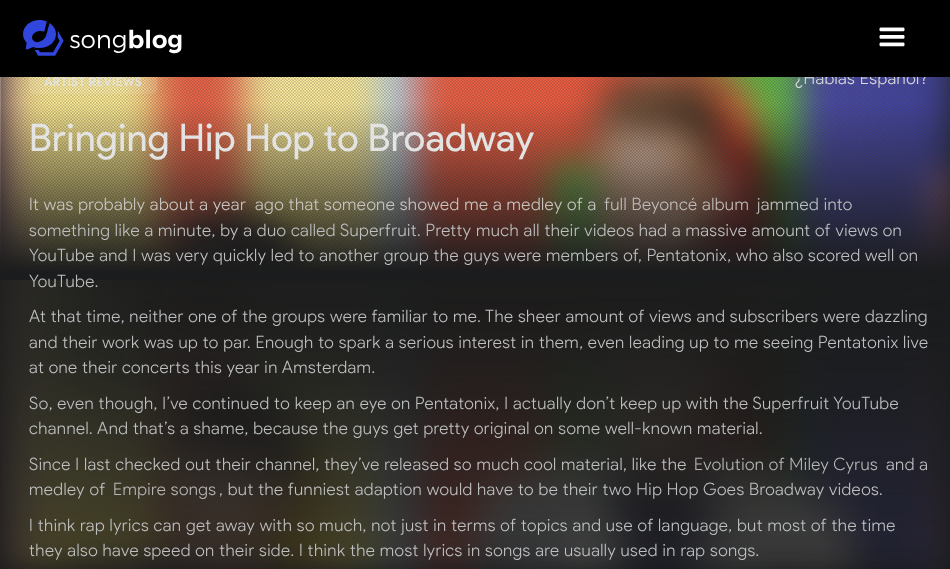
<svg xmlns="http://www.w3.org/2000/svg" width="950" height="569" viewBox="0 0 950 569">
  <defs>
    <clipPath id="clip1"><rect x="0" y="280" width="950" height="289"/></clipPath>
  </defs>
  <rect width="100%" height="100%" fill="rgb(27,28,29)"/>
  <image x="0" y="158" width="950" height="411" href="pic6.png"/>
  <g clip-path="url(#clip1)">
    <rect x="-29" y="-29" width="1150" height="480" fill="rgb(27,28,28)" filter="blur(100px)"/>
  </g>
  <image x="0" y="77" width="950" height="194" href="pic3.png"/>
  <image x="0" y="77" width="950" height="194" href="pic4.png"/>
  <image x="0" y="77" width="950" height="203" href="pic5.png"/>
  <rect x="29" y="70" width="128" height="24" rx="5" fill="rgba(255,255,255,0.1)"/>
  <text x="795" y="84" font-family="Product Sans" font-size="17" font-weight="300" letter-spacing="0.5" fill="rgb(218,218,218)">¿Hablas Español?</text>
  <rect x="0" y="0" width="950" height="77" fill="rgb(0,0,0)"/>
  <image x="23" y="20" width="159" height="36" href="pic1.png"/>
  <image x="879" y="27" width="26" height="20" href="pic2.png"/>
  <text x="44" y="86" font-family="Product Sans" font-size="12" font-weight="500" letter-spacing="0.5" fill="rgb(226,227,226)">ARTIST REVIEWS</text>
  <text x="29" y="151" font-family="Product Sans" font-size="38" letter-spacing="0.4" fill="rgb(226,227,226)">Bringing Hip Hop to Broadway</text>
  <text x="29" y="210" font-family="Product Sans" font-size="17" font-weight="300" letter-spacing="0.5" fill="rgb(200,197,192)" xml:space="preserve">It was probably about a year  ago that someone showed me a medley of a</text>
  <text x="604" y="210" font-family="Product Sans" font-size="17" font-weight="300" letter-spacing="0.5" fill="rgb(192,188,186)">full Beyoncé album</text>
  <g font-family="Product Sans" font-size="17" font-weight="300" letter-spacing="0.5" fill="rgb(190,191,192)">
    <text x="757" y="210">jammed into</text>
    <text>
      <tspan x="29" y="236">something like a minute, by a duo called Superfruit. Pretty much all their videos had a massive amount of views on</tspan>
      <tspan x="29" y="261">YouTube and I was very quickly led to another group the guys were members of, Pentatonix, who also scored well on</tspan>
      <tspan x="29" y="287">YouTube.</tspan>
    </text>
    <text>
      <tspan x="29" y="322">At that time, neither one of the groups were familiar to me. The sheer amount of views and subscribers were dazzling</tspan>
      <tspan x="29" y="348">and their work was up to par. Enough to spark a serious interest in them, even leading up to me seeing Pentatonix live</tspan>
      <tspan x="29" y="373">at one their concerts this year in Amsterdam.</tspan>
    </text>
    <text>
      <tspan x="29" y="409">So, even though, I’ve continued to keep an eye on Pentatonix, I actually don’t keep up with the Superfruit YouTube</tspan>
      <tspan x="29" y="434">channel. And that’s a shame, because the guys get pretty original on some well-known material.</tspan>
    </text>
    <text x="29" y="470">Since I last checked out their channel, they’ve released so much cool material, like the</text>
  </g>
  <text x="694" y="470" font-family="Product Sans" font-size="17" font-weight="300" letter-spacing="0.5" fill="rgb(182,182,182)">Evolution of Miley Cyrus</text>
  <g font-family="Product Sans" font-size="17" font-weight="300" letter-spacing="0.5" fill="rgb(190,191,192)">
    <text x="886" y="470">and a</text>
    <text x="29" y="495">medley of</text>
  </g>
  <text x="113" y="495" font-family="Product Sans" font-size="17" font-weight="300" letter-spacing="0.5" fill="rgb(182,182,182)">Empire songs</text>
  <g font-family="Product Sans" font-size="17" font-weight="300" letter-spacing="0.5" fill="rgb(190,191,192)">
    <text x="219" y="495">, but the funniest adaption would have to be their two Hip Hop Goes Broadway videos.</text>
    <text>
      <tspan x="29" y="531">I think rap lyrics can get away with so much, not just in terms of topics and use of language, but most of the time</tspan>
      <tspan x="29" y="556">they also have speed on their side. I think the most lyrics in songs are usually used in rap songs.</tspan>
    </text>
  </g>
</svg>
